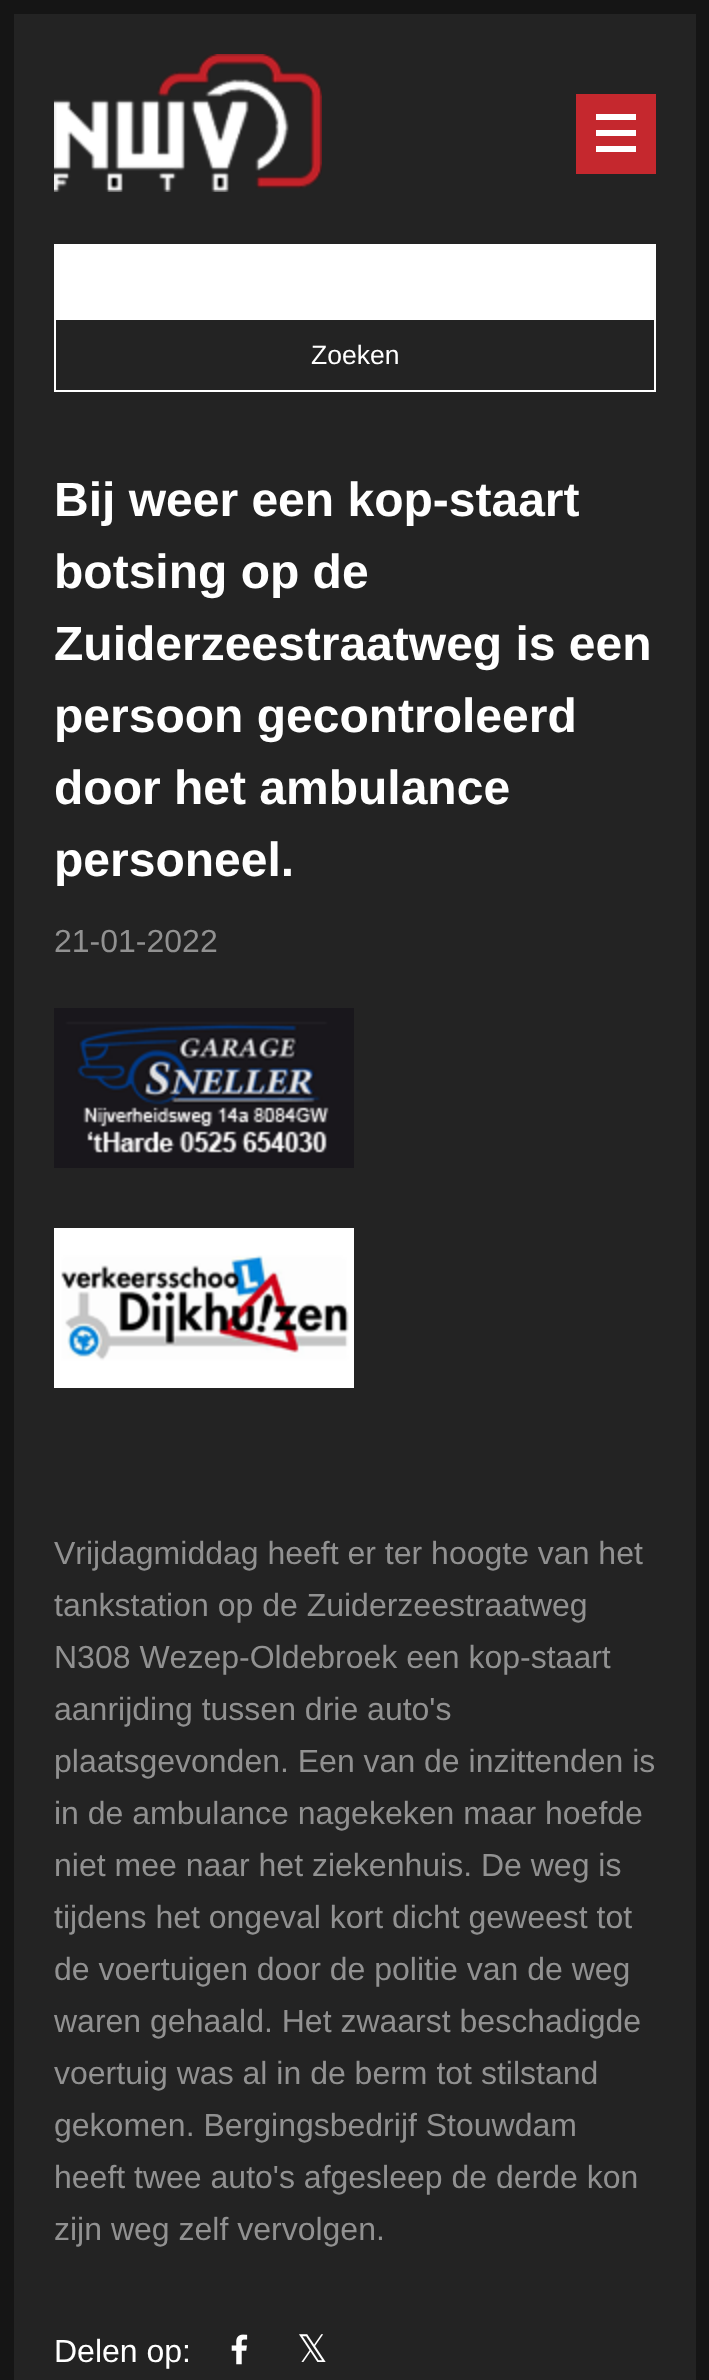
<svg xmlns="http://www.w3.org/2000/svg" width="709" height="2380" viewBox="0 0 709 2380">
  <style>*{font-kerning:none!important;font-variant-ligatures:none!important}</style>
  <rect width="100%" height="100%" fill="rgb(21,21,21)"/>
  <rect x="14" y="14" width="682" height="2366" fill="rgb(35,35,35)"/>
  <image x="54" y="54" width="268" height="138" href="pic1.png"/>
  <rect x="576" y="94" width="80" height="80" fill="rgb(197,40,46)"/>
  <rect x="596" y="114" width="40" height="6" fill="rgb(255,255,255)"/>
  <rect x="596" y="130" width="40" height="6" fill="rgb(255,255,255)"/>
  <rect x="596" y="146" width="40" height="6" fill="rgb(255,255,255)"/>
  <rect x="54" y="244" width="602" height="74" fill="rgb(255,255,255)"/>
  <rect x="55" y="319" width="600" height="72" fill="none" stroke="rgb(255,255,255)" stroke-width="2"/>
  <text x="311" y="364" font-family="Liberation Sans" font-size="26.5" fill="rgb(255,255,255)">Zoeken</text>
  <g font-family="Arimo" font-size="48" font-weight="bold" fill="rgb(255,255,255)">
    <text>
      <tspan x="54" y="516">Bij weer een kop-staart</tspan>
      <tspan x="54" y="588">botsing op de</tspan>
      <tspan x="54" y="660">Zuiderzeestraatweg is een</tspan>
      <tspan x="54" y="732">persoon gecontroleerd</tspan>
      <tspan x="54" y="804">door het ambulance</tspan>
      <tspan x="54" y="876">personeel.</tspan>
    </text>
  </g>
  <text x="54" y="952" font-family="Arimo" font-size="32" fill="rgb(145,145,145)">21-01-2022</text>
  <image x="54" y="1008" width="300" height="160" href="pic2.png"/>
  <image x="54" y="1228" width="300" height="160" href="pic3.png"/>
  <g font-family="Arimo" font-size="32" fill="rgb(145,145,145)">
    <text>
      <tspan x="54" y="1564">Vrijdagmiddag heeft er ter hoogte van het</tspan>
      <tspan x="54" y="1616">tankstation op de Zuiderzeestraatweg</tspan>
      <tspan x="54" y="1668">N308 Wezep-Oldebroek een kop-staart</tspan>
      <tspan x="54" y="1720">aanrijding tussen drie auto's</tspan>
      <tspan x="54" y="1772">plaatsgevonden. Een van de inzittenden is</tspan>
      <tspan x="54" y="1824">in de ambulance nagekeken maar hoefde</tspan>
      <tspan x="54" y="1876">niet mee naar het ziekenhuis. De weg is</tspan>
      <tspan x="54" y="1928">tijdens het ongeval kort dicht geweest tot</tspan>
      <tspan x="54" y="1980">de voertuigen door de politie van de weg</tspan>
      <tspan x="54" y="2032">waren gehaald. Het zwaarst beschadigde</tspan>
      <tspan x="54" y="2084">voertuig was al in de berm tot stilstand</tspan>
      <tspan x="54" y="2136">gekomen. Bergingsbedrijf Stouwdam</tspan>
      <tspan x="54" y="2188">heeft twee auto's afgesleep de derde kon</tspan>
      <tspan x="54" y="2240">zijn weg zelf vervolgen.</tspan>
    </text>
  </g>
  <text x="54" y="2362" font-family="Arimo" font-size="32" fill="rgb(255,255,255)">Delen op:</text>
  <image x="231" y="2334" width="17" height="31" href="pic4.png"/>
  <text x="297" y="2362" font-family="DejaVu Sans" font-size="38" fill="rgb(255,255,255)">𝕏</text>
</svg>
